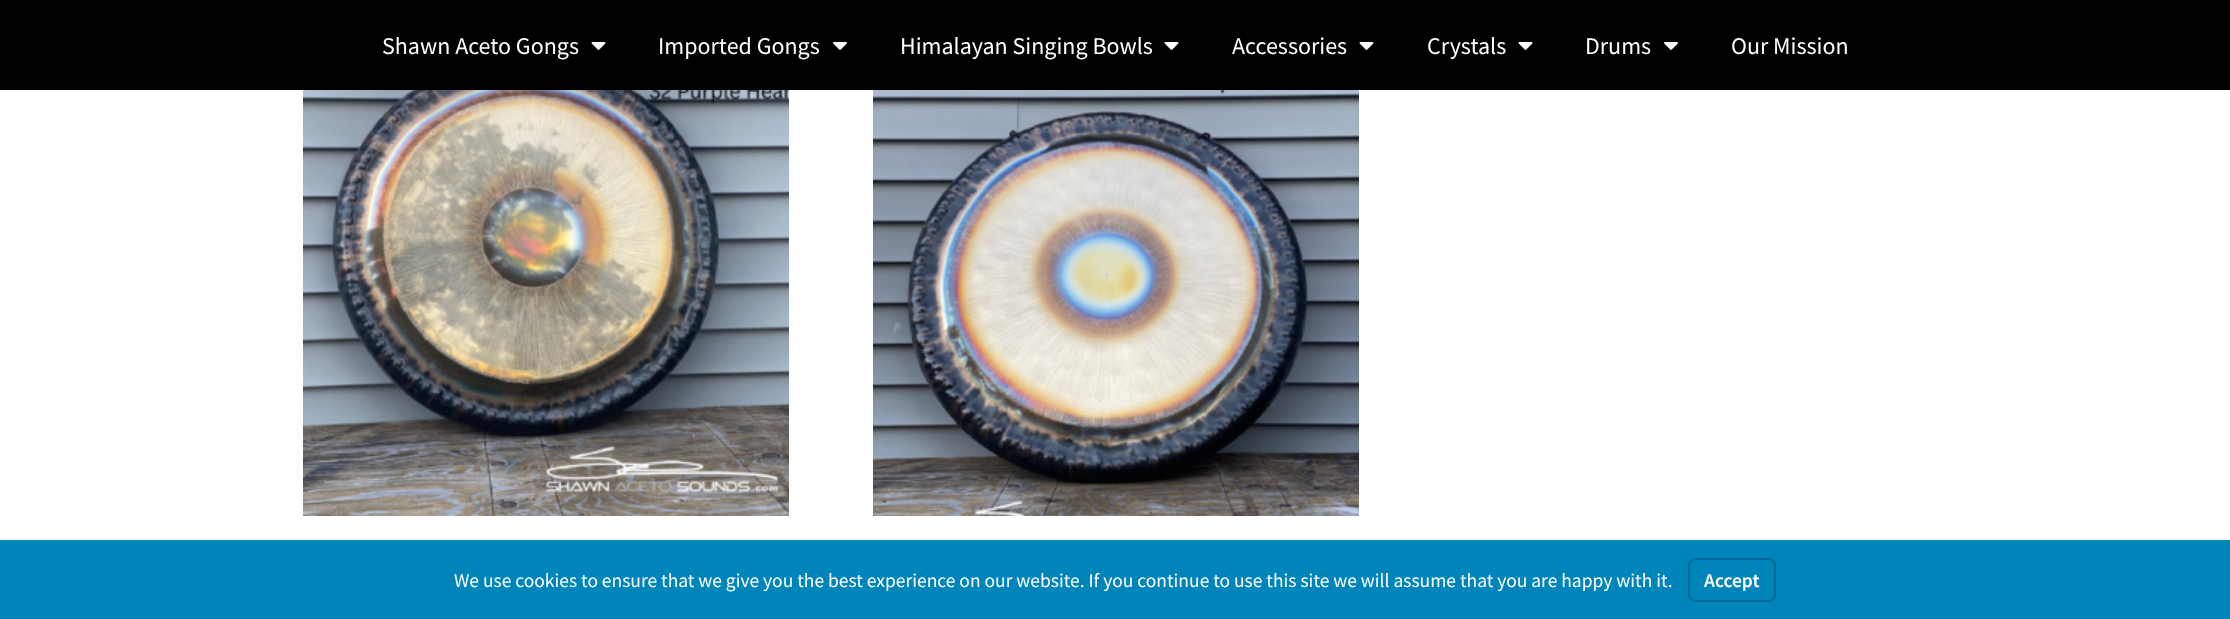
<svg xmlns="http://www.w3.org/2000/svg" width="2230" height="619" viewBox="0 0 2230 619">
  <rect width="100%" height="100%" fill="rgb(255,255,255)"/>
  <rect x="0" y="0" width="2230" height="90" fill="rgb(0,0,0)"/>
  <text x="382" y="54" font-family="Source Sans Pro" font-size="24" fill="rgb(255,255,255)">Shawn Aceto Gongs</text>
  <image x="591" y="42" width="15" height="8" href="pic1.png"/>
  <text x="658" y="54" font-family="Source Sans Pro" font-size="24" fill="rgb(255,255,255)">Imported Gongs</text>
  <image x="833" y="42" width="14" height="8" href="pic2.png"/>
  <text x="900" y="54" font-family="Source Sans Pro" font-size="24" fill="rgb(255,255,255)">Himalayan Singing Bowls</text>
  <image x="1164" y="42" width="15" height="8" href="pic1.png"/>
  <text x="1232" y="54" font-family="Source Sans Pro" font-size="24" fill="rgb(255,255,255)">Accessories</text>
  <image x="1359" y="42" width="15" height="8" href="pic1.png"/>
  <text x="1427" y="54" font-family="Source Sans Pro" font-size="24" fill="rgb(255,255,255)">Crystals</text>
  <image x="1518" y="42" width="15" height="8" href="pic1.png"/>
  <text x="1585" y="54" font-family="Source Sans Pro" font-size="24" fill="rgb(255,255,255)">Drums</text>
  <image x="1664" y="42" width="14" height="8" href="pic2.png"/>
  <text x="1731" y="54" font-family="Source Sans Pro" font-size="24" fill="rgb(255,255,255)">Our Mission</text>
  <image x="303" y="90" width="486" height="426" href="pic3.png"/>
  <image x="873" y="90" width="486" height="426" href="pic4.png"/>
  <rect x="0" y="540" width="2230" height="79" fill="rgb(0,133,186)"/>
  <text x="454" y="587" font-family="Source Sans Pro" font-size="19.5" fill="rgb(255,255,255)">We use cookies to ensure that we give you the best experience on our website. If you continue to use this site we will assume that you are happy with it.</text>
  <rect x="1689" y="559" width="86" height="42" rx="7" fill="none" stroke="rgb(0,103,153)" stroke-width="2"/>
  <text x="1704" y="587" font-family="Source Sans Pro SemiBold" font-size="19.5" font-weight="600" fill="rgb(255,255,255)">Accept</text>
</svg>
